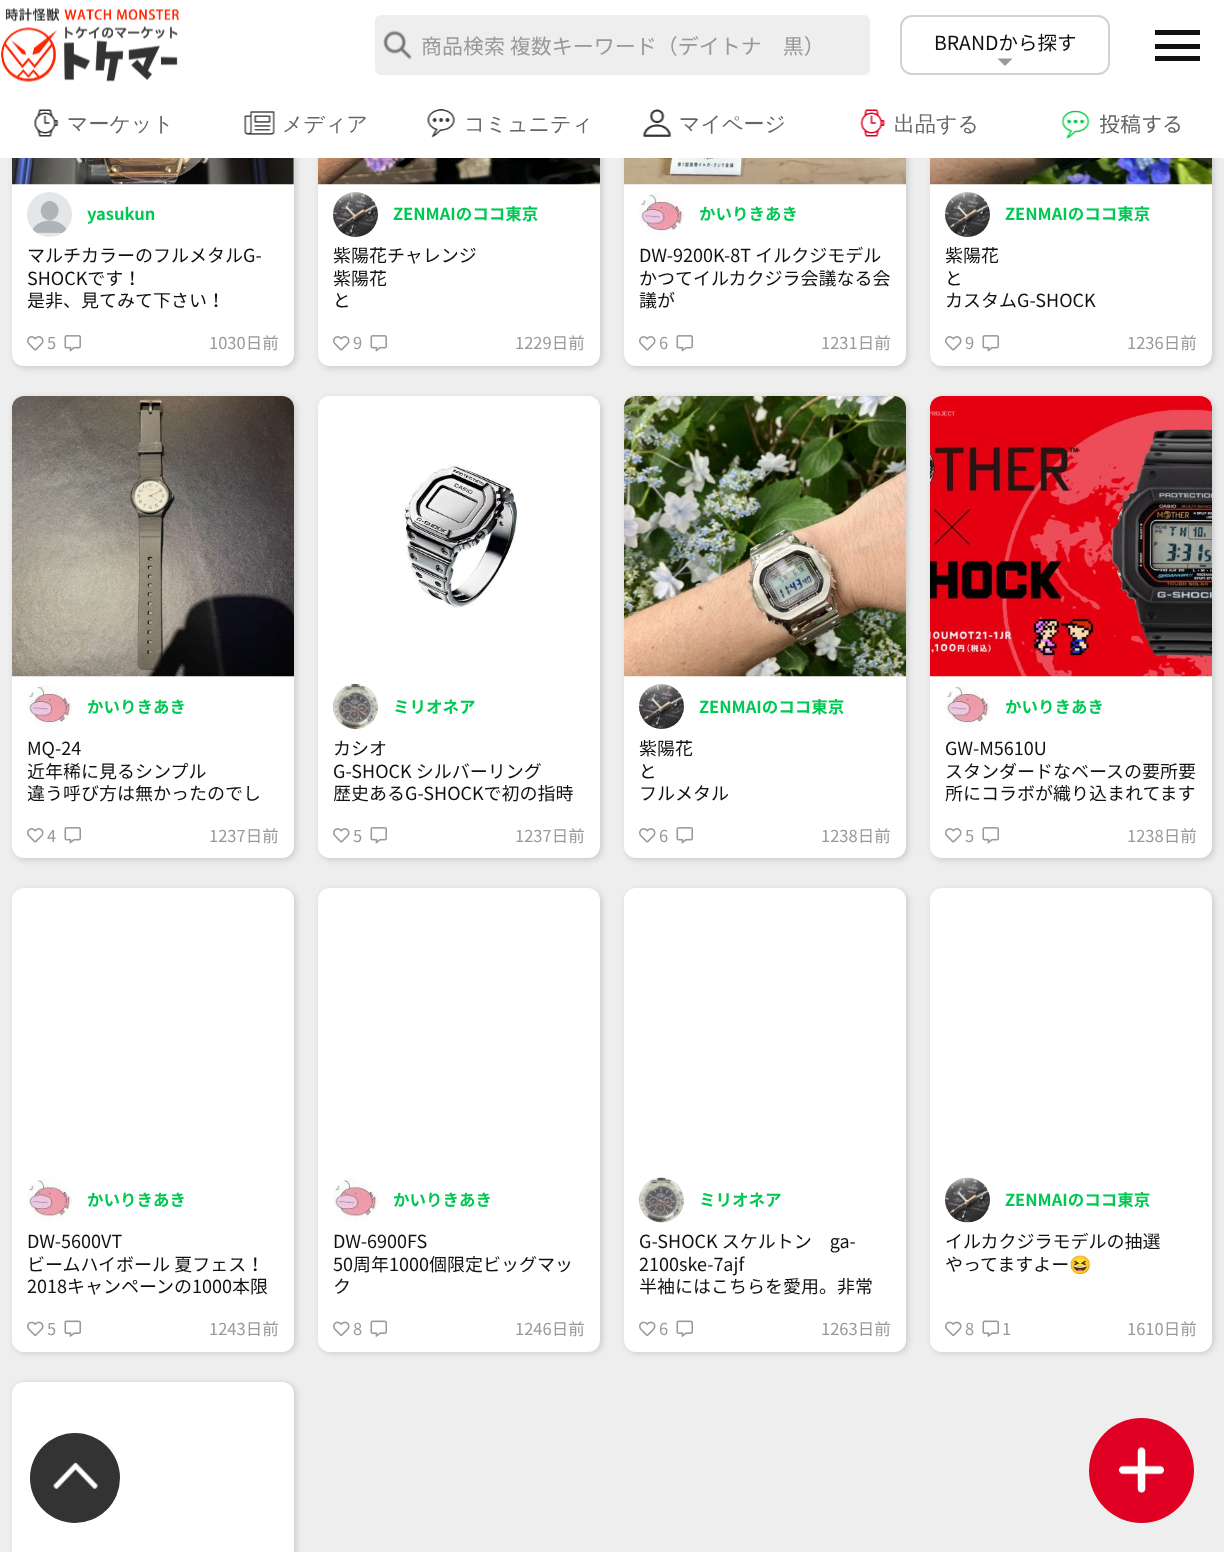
<svg xmlns="http://www.w3.org/2000/svg" width="1224" height="1552" viewBox="0 0 1224 1552">
  <rect width="100%" height="100%" fill="rgb(238,238,238)"/>
  <rect x="14" y="-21" width="282" height="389" rx="12" fill="rgba(0,0,0,0.15)" filter="blur(3px)"/>
  <rect x="12" y="-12" width="282" height="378" rx="12" fill="rgb(255,255,255)"/>
  <rect x="320" y="-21" width="282" height="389" rx="12" fill="rgba(0,0,0,0.15)" filter="blur(3px)"/>
  <rect x="318" y="-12" width="282" height="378" rx="12" fill="rgb(255,255,255)"/>
  <rect x="626" y="-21" width="282" height="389" rx="12" fill="rgba(0,0,0,0.15)" filter="blur(3px)"/>
  <rect x="624" y="-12" width="282" height="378" rx="12" fill="rgb(255,255,255)"/>
  <rect x="932" y="-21" width="282" height="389" rx="12" fill="rgba(0,0,0,0.15)" filter="blur(3px)"/>
  <rect x="930" y="-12" width="282" height="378" rx="12" fill="rgb(255,255,255)"/>
  <rect x="0" y="0" width="1224" height="158" fill="rgb(255,255,255)"/>
  <image x="1" y="7" width="178" height="75" href="pic1.png"/>
  <rect x="376" y="16" width="493" height="58" rx="5" fill="rgb(238,238,238)" stroke="rgb(238,238,238)" stroke-width="2"/>
  <image x="383" y="30" width="29" height="30" href="pic2.png"/>
  <text x="421" y="54" font-family="Noto Sans JP" font-size="21" fill="rgb(153,153,153)">商品検索 複数キーワード（デイトナ　黒）</text>
  <rect x="901" y="16" width="208" height="58" rx="11" fill="none" stroke="rgb(210,210,210)" stroke-width="2"/>
  <text x="934" y="50" font-family="Noto Sans JP" font-size="19.5" fill="rgb(17,17,17)">BRANDから探す</text>
  <path d="M997.5 58.5H1012.5L1005 66Z" fill="rgb(153,153,153)"/>
  <rect x="1155" y="30" width="45" height="5" fill="rgb(17,17,17)"/>
  <rect x="1155" y="44" width="45" height="5" fill="rgb(17,17,17)"/>
  <rect x="1155" y="56" width="45" height="5" fill="rgb(17,17,17)"/>
  <image x="33" y="109" width="26" height="28" href="pic3.png"/>
  <text x="67" y="131" font-family="WenQuanYi Zen Hei" font-size="21" font-weight="500" fill="rgb(102,102,102)">マーケット</text>
  <image x="244" y="111" width="31" height="24" href="pic4.png"/>
  <text x="282" y="131" font-family="WenQuanYi Zen Hei" font-size="21" font-weight="500" fill="rgb(102,102,102)">メディア</text>
  <image x="427" y="109" width="29" height="29" href="pic5.png"/>
  <text x="464" y="131" font-family="WenQuanYi Zen Hei" font-size="21" font-weight="500" fill="rgb(102,102,102)">コミュニティ</text>
  <image x="642" y="109" width="30" height="28" href="pic6.png"/>
  <text x="679" y="131" font-family="WenQuanYi Zen Hei" font-size="21" font-weight="500" fill="rgb(102,102,102)">マイページ</text>
  <image x="860" y="109" width="25" height="28" href="pic7.png"/>
  <text x="894" y="131" font-family="WenQuanYi Zen Hei" font-size="21" font-weight="500" fill="rgb(102,102,102)">出品する</text>
  <image x="1061" y="110" width="29" height="29" href="pic8.png"/>
  <text x="1099" y="132" font-family="Noto Sans JP" font-size="21" fill="rgb(102,102,102)">投稿する</text>
  <image x="12" y="158" width="282" height="27" href="pic9.png"/>
  <image x="27" y="192" width="45" height="45" href="pic10.png"/>
  <text x="87" y="220" font-family="Noto Sans JP" font-size="16.5" font-weight="bold" fill="rgb(0,200,83)">yasukun</text>
  <g font-family="Noto Sans JP" font-size="18" fill="rgb(17,17,17)">
    <text>
      <tspan x="27" y="262">マルチカラーのフルメタルG-</tspan>
      <tspan x="27" y="285">SHOCKです！</tspan>
      <tspan x="27" y="307">是非、見てみて下さい！</tspan>
    </text>
  </g>
  <image x="27" y="336" width="17" height="15" href="pic11.png"/>
  <text x="47" y="349" font-family="Noto Sans JP" font-size="16.5" fill="rgb(153,153,153)">5</text>
  <image x="64" y="335" width="17" height="17" href="pic12.png"/>
  <text x="209" y="349" font-family="Noto Sans JP" font-size="16.5" fill="rgb(153,153,153)">1030日前</text>
  <image x="318" y="158" width="282" height="27" href="pic13.png"/>
  <image x="333" y="192" width="45" height="45" href="pic14.png"/>
  <text x="393" y="220" font-family="Noto Sans JP" font-size="16.5" font-weight="bold" fill="rgb(0,200,83)">ZENMAIのココ東京</text>
  <g font-family="Noto Sans JP" font-size="18" fill="rgb(17,17,17)">
    <text>
      <tspan x="333" y="262">紫陽花チャレンジ</tspan>
      <tspan x="333" y="285">紫陽花</tspan>
      <tspan x="333" y="307">と</tspan>
    </text>
  </g>
  <image x="333" y="336" width="17" height="15" href="pic11.png"/>
  <text x="353" y="349" font-family="Noto Sans JP" font-size="16.5" fill="rgb(153,153,153)">9</text>
  <image x="370" y="335" width="17" height="17" href="pic12.png"/>
  <text x="515" y="349" font-family="Noto Sans JP" font-size="16.5" fill="rgb(153,153,153)">1229日前</text>
  <image x="624" y="158" width="282" height="27" href="pic15.png"/>
  <image x="639" y="192" width="45" height="43" href="pic16.png"/>
  <text x="699" y="220" font-family="Noto Sans JP" font-size="16.5" font-weight="bold" fill="rgb(0,200,83)">かいりきあき</text>
  <g font-family="Noto Sans JP" font-size="18" fill="rgb(17,17,17)">
    <text>
      <tspan x="639" y="262">DW-9200K-8T イルクジモデル</tspan>
      <tspan x="639" y="285">かつてイルカクジラ会議なる会</tspan>
      <tspan x="639" y="307">議が</tspan>
    </text>
  </g>
  <image x="639" y="336" width="17" height="15" href="pic11.png"/>
  <text x="659" y="349" font-family="Noto Sans JP" font-size="16.5" fill="rgb(153,153,153)">6</text>
  <image x="676" y="335" width="17" height="17" href="pic12.png"/>
  <text x="821" y="349" font-family="Noto Sans JP" font-size="16.5" fill="rgb(153,153,153)">1231日前</text>
  <image x="930" y="158" width="282" height="27" href="pic17.png"/>
  <image x="945" y="192" width="45" height="45" href="pic18.png"/>
  <text x="1005" y="220" font-family="Noto Sans JP" font-size="16.5" font-weight="bold" fill="rgb(0,200,83)">ZENMAIのココ東京</text>
  <g font-family="Noto Sans JP" font-size="18" fill="rgb(17,17,17)">
    <text>
      <tspan x="945" y="262">紫陽花</tspan>
      <tspan x="945" y="285">と</tspan>
      <tspan x="945" y="307">カスタムG-SHOCK</tspan>
    </text>
  </g>
  <image x="945" y="336" width="17" height="15" href="pic11.png"/>
  <text x="965" y="349" font-family="Noto Sans JP" font-size="16.5" fill="rgb(153,153,153)">9</text>
  <image x="982" y="335" width="17" height="17" href="pic12.png"/>
  <text x="1127" y="349" font-family="Noto Sans JP" font-size="16.5" fill="rgb(153,153,153)">1236日前</text>
  <rect x="14" y="398" width="282" height="462" rx="12" fill="rgba(0,0,0,0.15)" filter="blur(3px)"/>
  <rect x="12" y="396" width="282" height="462" rx="12" fill="rgb(255,255,255)"/>
  <image x="12" y="396" width="282" height="281" href="pic19.png"/>
  <image x="27" y="684" width="45" height="43" href="pic20.png"/>
  <text x="87" y="713" font-family="Noto Sans JP" font-size="16.5" font-weight="bold" fill="rgb(0,200,83)">かいりきあき</text>
  <g font-family="Noto Sans JP" font-size="18" fill="rgb(17,17,17)">
    <text>
      <tspan x="27" y="755">MQ-24</tspan>
      <tspan x="27" y="778">近年稀に見るシンプル</tspan>
      <tspan x="27" y="800">違う呼び方は無かったのでし</tspan>
    </text>
  </g>
  <image x="27" y="828" width="17" height="15" href="pic11.png"/>
  <text x="47" y="842" font-family="Noto Sans JP" font-size="16.5" fill="rgb(153,153,153)">4</text>
  <image x="64" y="827" width="17" height="17" href="pic12.png"/>
  <text x="209" y="842" font-family="Noto Sans JP" font-size="16.5" fill="rgb(153,153,153)">1237日前</text>
  <rect x="320" y="398" width="282" height="462" rx="12" fill="rgba(0,0,0,0.15)" filter="blur(3px)"/>
  <rect x="318" y="396" width="282" height="462" rx="12" fill="rgb(255,255,255)"/>
  <image x="318" y="396" width="282" height="212" href="pic21.png"/>
  <image x="333" y="684" width="45" height="45" href="pic22.png"/>
  <text x="393" y="713" font-family="Noto Sans JP" font-size="16.5" font-weight="bold" fill="rgb(0,200,83)">ミリオネア</text>
  <g font-family="Noto Sans JP" font-size="18" fill="rgb(17,17,17)">
    <text>
      <tspan x="333" y="755">カシオ</tspan>
      <tspan x="333" y="778">G-SHOCK シルバーリング</tspan>
      <tspan x="333" y="800">歴史あるG-SHOCKで初の指時</tspan>
    </text>
  </g>
  <image x="333" y="828" width="17" height="15" href="pic11.png"/>
  <text x="353" y="842" font-family="Noto Sans JP" font-size="16.5" fill="rgb(153,153,153)">5</text>
  <image x="370" y="827" width="17" height="17" href="pic12.png"/>
  <text x="515" y="842" font-family="Noto Sans JP" font-size="16.5" fill="rgb(153,153,153)">1237日前</text>
  <rect x="626" y="398" width="282" height="462" rx="12" fill="rgba(0,0,0,0.15)" filter="blur(3px)"/>
  <rect x="624" y="396" width="282" height="462" rx="12" fill="rgb(255,255,255)"/>
  <image x="624" y="396" width="282" height="281" href="pic23.png"/>
  <image x="639" y="684" width="45" height="45" href="pic24.png"/>
  <text x="699" y="713" font-family="Noto Sans JP" font-size="16.5" font-weight="bold" fill="rgb(0,200,83)">ZENMAIのココ東京</text>
  <g font-family="Noto Sans JP" font-size="18" fill="rgb(17,17,17)">
    <text>
      <tspan x="639" y="755">紫陽花</tspan>
      <tspan x="639" y="778">と</tspan>
      <tspan x="639" y="800">フルメタル</tspan>
    </text>
  </g>
  <image x="639" y="828" width="17" height="15" href="pic11.png"/>
  <text x="659" y="842" font-family="Noto Sans JP" font-size="16.5" fill="rgb(153,153,153)">6</text>
  <image x="676" y="827" width="17" height="17" href="pic12.png"/>
  <text x="821" y="842" font-family="Noto Sans JP" font-size="16.5" fill="rgb(153,153,153)">1238日前</text>
  <rect x="932" y="398" width="282" height="462" rx="12" fill="rgba(0,0,0,0.15)" filter="blur(3px)"/>
  <rect x="930" y="396" width="282" height="462" rx="12" fill="rgb(255,255,255)"/>
  <image x="930" y="396" width="282" height="281" href="pic25.png"/>
  <image x="945" y="684" width="45" height="43" href="pic26.png"/>
  <text x="1005" y="713" font-family="Noto Sans JP" font-size="16.5" font-weight="bold" fill="rgb(0,200,83)">かいりきあき</text>
  <g font-family="Noto Sans JP" font-size="18" fill="rgb(17,17,17)">
    <text>
      <tspan x="945" y="755">GW-M5610U</tspan>
      <tspan x="945" y="778">スタンダードなベースの要所要</tspan>
      <tspan x="945" y="800">所にコラボが織り込まれてます</tspan>
    </text>
  </g>
  <image x="945" y="828" width="17" height="15" href="pic11.png"/>
  <text x="965" y="842" font-family="Noto Sans JP" font-size="16.5" fill="rgb(153,153,153)">5</text>
  <image x="982" y="827" width="17" height="17" href="pic12.png"/>
  <text x="1127" y="842" font-family="Noto Sans JP" font-size="16.5" fill="rgb(153,153,153)">1238日前</text>
  <rect x="14" y="890" width="282" height="463" rx="12" fill="rgba(0,0,0,0.15)" filter="blur(3px)"/>
  <rect x="12" y="888" width="282" height="464" rx="12" fill="rgb(255,255,255)"/>
  <image x="27" y="1178" width="45" height="43" href="pic27.png"/>
  <text x="87" y="1206" font-family="Noto Sans JP" font-size="16.5" font-weight="bold" fill="rgb(0,200,83)">かいりきあき</text>
  <g font-family="Noto Sans JP" font-size="18" fill="rgb(17,17,17)">
    <text>
      <tspan x="27" y="1248">DW-5600VT</tspan>
      <tspan x="27" y="1271">ビームハイボール 夏フェス！</tspan>
      <tspan x="27" y="1293">2018キャンペーンの1000本限</tspan>
    </text>
  </g>
  <image x="27" y="1321" width="17" height="15" href="pic28.png"/>
  <text x="47" y="1335" font-family="Noto Sans JP" font-size="16.5" fill="rgb(153,153,153)">5</text>
  <image x="64" y="1320" width="17" height="17" href="pic29.png"/>
  <text x="209" y="1335" font-family="Noto Sans JP" font-size="16.5" fill="rgb(153,153,153)">1243日前</text>
  <rect x="320" y="890" width="282" height="463" rx="12" fill="rgba(0,0,0,0.15)" filter="blur(3px)"/>
  <rect x="318" y="888" width="282" height="464" rx="12" fill="rgb(255,255,255)"/>
  <image x="333" y="1178" width="45" height="43" href="pic30.png"/>
  <text x="393" y="1206" font-family="Noto Sans JP" font-size="16.5" font-weight="bold" fill="rgb(0,200,83)">かいりきあき</text>
  <g font-family="Noto Sans JP" font-size="18" fill="rgb(17,17,17)">
    <text>
      <tspan x="333" y="1248">DW-6900FS</tspan>
      <tspan x="333" y="1271">50周年1000個限定ビッグマッ</tspan>
      <tspan x="333" y="1293">ク</tspan>
    </text>
  </g>
  <image x="333" y="1321" width="17" height="15" href="pic28.png"/>
  <text x="353" y="1335" font-family="Noto Sans JP" font-size="16.5" fill="rgb(153,153,153)">8</text>
  <image x="370" y="1320" width="17" height="17" href="pic29.png"/>
  <text x="515" y="1335" font-family="Noto Sans JP" font-size="16.5" fill="rgb(153,153,153)">1246日前</text>
  <rect x="626" y="890" width="282" height="463" rx="12" fill="rgba(0,0,0,0.15)" filter="blur(3px)"/>
  <rect x="624" y="888" width="282" height="464" rx="12" fill="rgb(255,255,255)"/>
  <image x="639" y="1177" width="45" height="46" href="pic31.png"/>
  <text x="699" y="1206" font-family="Noto Sans JP" font-size="16.5" font-weight="bold" fill="rgb(0,200,83)">ミリオネア</text>
  <g font-family="Noto Sans JP" font-size="18" fill="rgb(17,17,17)">
    <text>
      <tspan x="639" y="1248">G-SHOCK スケルトン　ga-</tspan>
      <tspan x="639" y="1271">2100ske-7ajf</tspan>
      <tspan x="639" y="1293">半袖にはこちらを愛用。非常</tspan>
    </text>
  </g>
  <image x="639" y="1321" width="17" height="15" href="pic28.png"/>
  <text x="659" y="1335" font-family="Noto Sans JP" font-size="16.5" fill="rgb(153,153,153)">6</text>
  <image x="676" y="1320" width="17" height="17" href="pic29.png"/>
  <text x="821" y="1335" font-family="Noto Sans JP" font-size="16.5" fill="rgb(153,153,153)">1263日前</text>
  <rect x="932" y="890" width="282" height="463" rx="12" fill="rgba(0,0,0,0.15)" filter="blur(3px)"/>
  <rect x="930" y="888" width="282" height="464" rx="12" fill="rgb(255,255,255)"/>
  <image x="945" y="1177" width="45" height="46" href="pic32.png"/>
  <text x="1005" y="1206" font-family="Noto Sans JP" font-size="16.5" font-weight="bold" fill="rgb(0,200,83)">ZENMAIのココ東京</text>
  <g font-family="Noto Sans JP" font-size="18" fill="rgb(17,17,17)">
    <text>
      <tspan x="945" y="1248">イルカクジラモデルの抽選</tspan>
      <tspan x="945" y="1271">やってますよー</tspan>
    </text>
  </g>
  <text x="1069" y="1271" font-family="Noto Color Emoji" font-size="18" fill="rgb(17,17,17)">😆</text>
  <image x="945" y="1321" width="17" height="15" href="pic28.png"/>
  <text x="965" y="1335" font-family="Noto Sans JP" font-size="16.5" fill="rgb(153,153,153)">8</text>
  <image x="982" y="1320" width="17" height="17" href="pic29.png"/>
  <g font-family="Noto Sans JP" font-size="16.5" fill="rgb(153,153,153)">
    <text x="1002" y="1335">1</text>
    <text x="1127" y="1335">1610日前</text>
  </g>
  <rect x="14" y="1383" width="282" height="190" rx="12" fill="rgba(0,0,0,0.15)" filter="blur(3px)"/>
  <rect x="12" y="1382" width="282" height="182" rx="12" fill="rgb(255,255,255)"/>
  <circle cx="75" cy="1478" r="45" fill="rgb(51,51,51)"/>
  <image x="53" y="1462" width="45" height="27" href="pic33.png"/>
  <circle cx="1141.5" cy="1470.5" r="52.5" fill="rgb(223,0,35)"/>
  <image x="1119" y="1447" width="45" height="46" href="pic34.png"/>
</svg>
